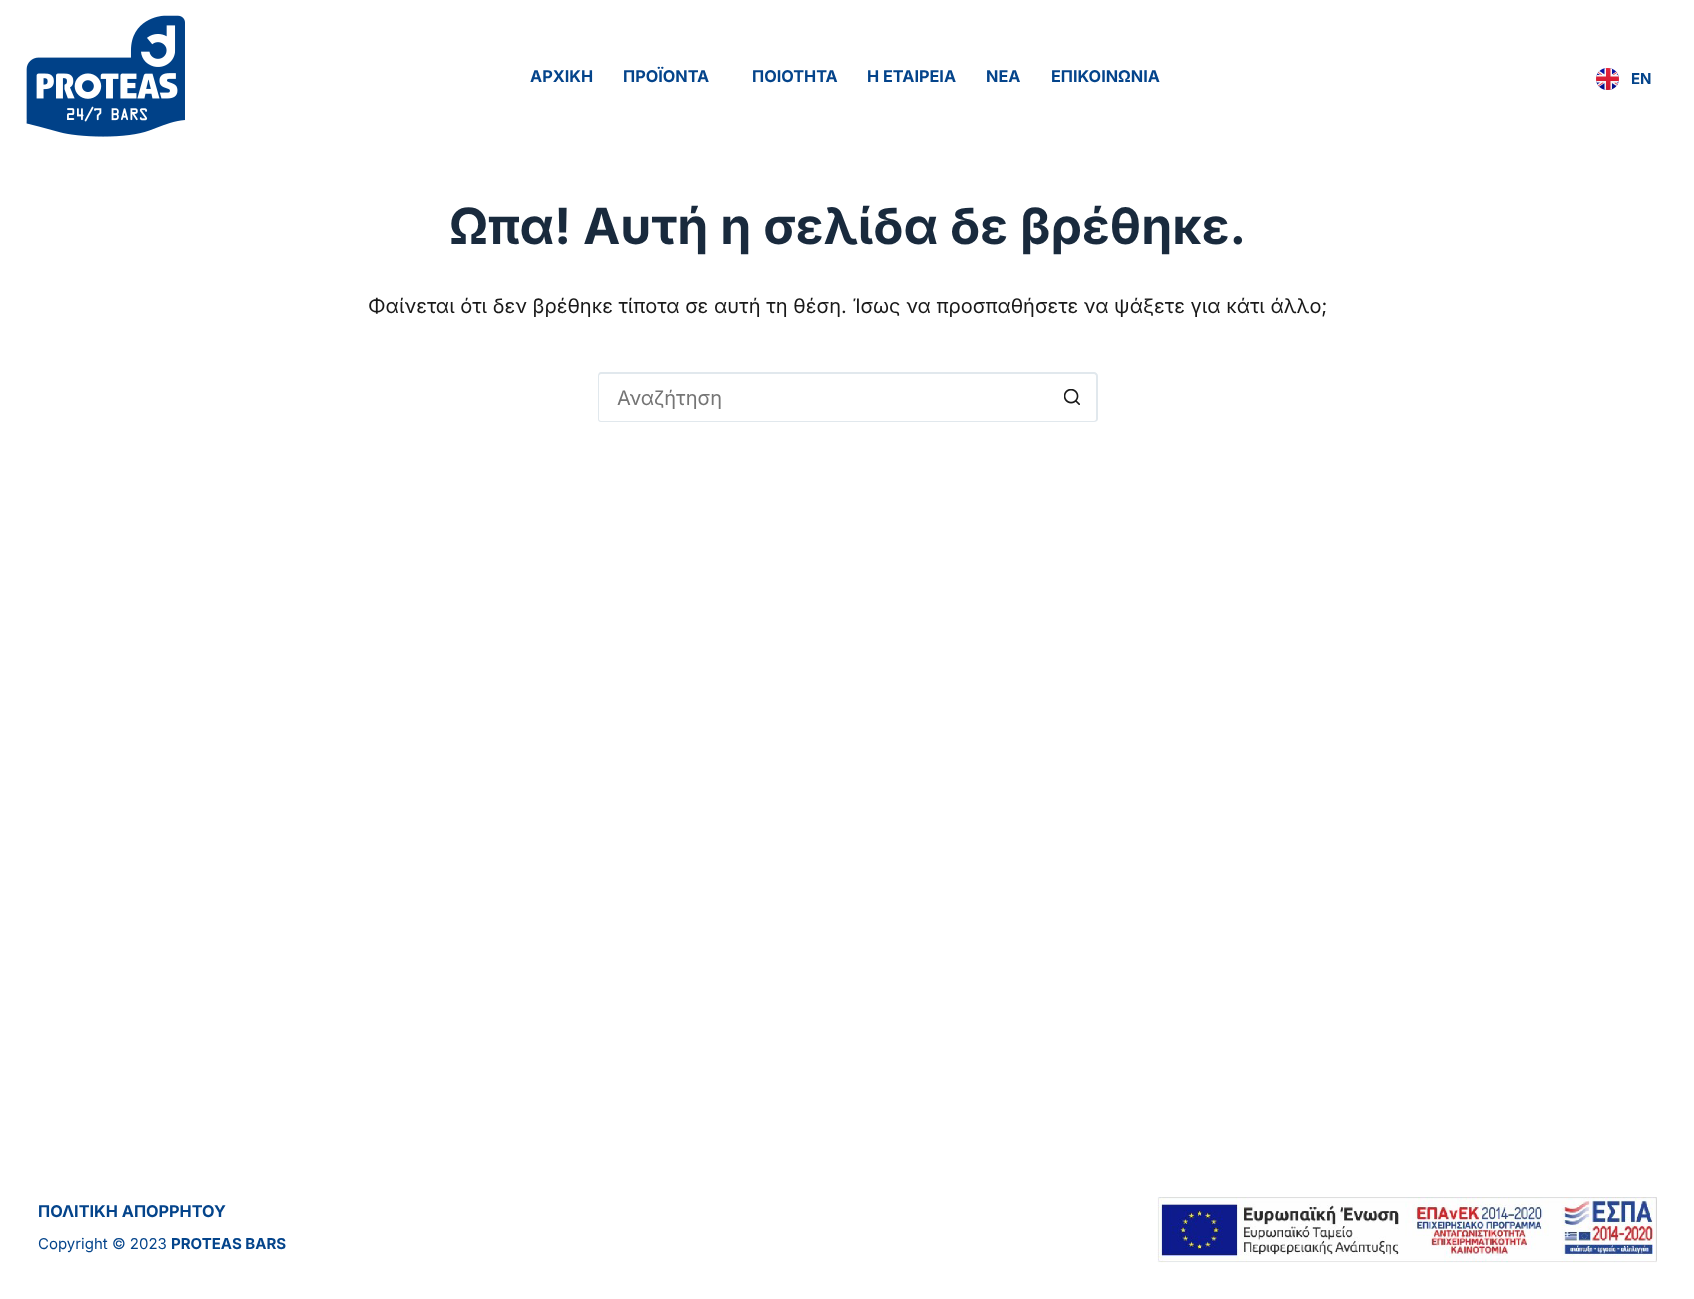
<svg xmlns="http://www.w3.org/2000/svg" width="1694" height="1299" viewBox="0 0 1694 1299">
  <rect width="100%" height="100%" fill="rgb(255,255,255)"/>
  <image x="26" y="15" width="159" height="122" href="pic1.png"/>
  <g font-family="Inter" font-size="16.25" font-weight="bold" fill="rgb(4,68,139)">
    <text x="530" y="82">ΑΡΧΙΚΗ</text>
    <text x="623" y="82">ΠΡΟΪΟΝΤΑ</text>
    <text x="752" y="82">ΠΟΙΟΤΗΤΑ</text>
    <text x="867" y="82">Η ΕΤΑΙΡΕΙΑ</text>
    <text x="986" y="82">ΝΕΑ</text>
    <text x="1051" y="82">ΕΠΙΚΟΙΝΩΝΙΑ</text>
  </g>
  <image x="1596" y="68" width="23" height="22" href="pic2.png"/>
  <text x="1631" y="84" font-family="Inter" font-size="15" font-weight="bold" fill="rgb(4,68,139)">EN</text>
  <text x="449" y="244" font-family="Inter" font-size="50" font-weight="bold" fill="rgb(25,42,61)">Ωπα! Αυτή η σελίδα δε βρέθηκε.</text>
  <text x="368" y="313" font-family="Inter" font-size="20" fill="rgb(25,25,25)">Φαίνεται ότι δεν βρέθηκε τίποτα σε αυτή τη θέση. Ίσως να προσπαθήσετε να ψάξετε για κάτι άλλο;</text>
  <path d="M601 372H1048V422H601C599 422 598 421 598 419V376C598 374 599 372 601 372ZM601 374H1048V421H601C600 421 599 420 599 419V376C599 375 600 374 601 374Z" fill="rgb(225,232,237)" fill-rule="evenodd"/>
  <text x="617" y="405" font-family="Inter" font-size="20" fill="rgb(117,117,117)">Αναζήτηση</text>
  <path d="M1048 372H1094C1096 372 1098 374 1098 376V419C1098 421 1096 422 1094 422H1048ZM1048 374H1094C1095 374 1096 375 1096 376V419C1096 420 1095 421 1094 421H1048Z" fill="rgb(225,232,237)" fill-rule="evenodd"/>
  <image x="1064" y="389" width="16" height="16" href="pic3.png"/>
  <text x="38" y="1217" font-family="Inter" font-size="16.25" font-weight="bold" fill="rgb(4,68,139)">ΠΟΛΙΤΙΚΗ ΑΠΟΡΡΗΤΟΥ</text>
  <text x="38" y="1249" font-family="Inter" font-size="15" fill="rgb(4,68,139)">Copyright © 2023</text>
  <text x="171" y="1249" font-family="Inter" font-size="15" font-weight="bold" fill="rgb(4,68,139)">PROTEAS BARS</text>
  <image x="1157" y="1197" width="500" height="66" href="pic4.png"/>
</svg>
